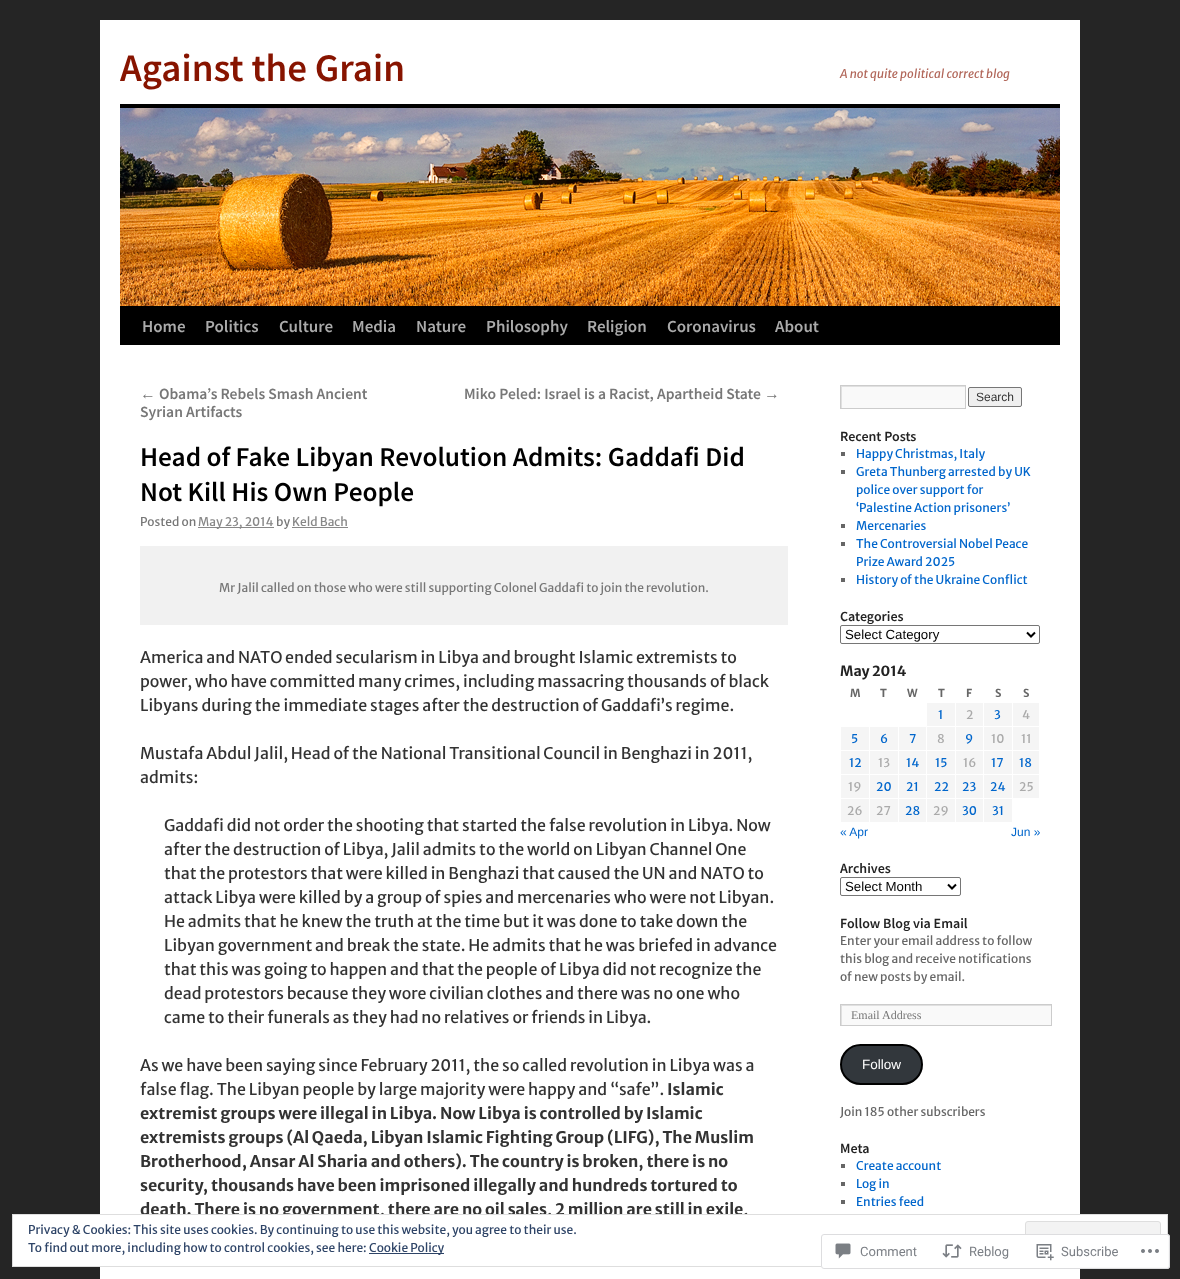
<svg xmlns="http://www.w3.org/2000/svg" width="1180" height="1279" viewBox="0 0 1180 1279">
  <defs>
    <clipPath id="clip1"><rect x="841" y="386" width="124" height="22"/></clipPath>
    <clipPath id="clip2"><rect x="841" y="1005" width="210" height="20"/></clipPath>
  </defs>
  <rect width="100%" height="100%" fill="rgb(37,37,37)"/>
  <rect x="100" y="20" width="980" height="1259" fill="rgb(255,255,255)"/>
  <text x="120" y="81" font-family="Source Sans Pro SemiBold" font-size="39" font-weight="600" fill="rgb(135,20,0)">Against the Grain</text>
  <text x="840" y="78" font-family="Merriweather Sans" font-size="12" font-style="italic" fill="rgb(177,102,89)">A not quite political correct blog</text>
  <rect x="120" y="104" width="940" height="4" fill="rgb(0,0,0)"/>
  <rect x="120" y="306" width="940" height="39" fill="rgb(0,0,0)"/>
  <image x="120" y="108" width="940" height="198" href="pic1.png"/>
  <g font-family="Source Sans Pro SemiBold" font-size="17" font-weight="600" fill="rgb(170,170,170)">
    <text x="142" y="332">Home</text>
    <text x="205" y="332">Politics</text>
    <text x="279" y="332">Culture</text>
    <text x="352" y="332">Media</text>
    <text x="416" y="332">Nature</text>
    <text x="486" y="332">Philosophy</text>
    <text x="587" y="332">Religion</text>
    <text x="667" y="332">Coronavirus</text>
    <text x="775" y="332">About</text>
  </g>
  <text x="140" y="399" font-family="Liberation Sans" font-size="15.6" font-weight="bold" fill="rgb(119,119,119)">←</text>
  <g font-family="Source Sans Pro SemiBold" font-size="15.6" font-weight="600" fill="rgb(119,119,119)">
    <text x="159" y="399">Obama’s Rebels Smash Ancient</text>
    <text x="140" y="417">Syrian Artifacts</text>
    <text x="464" y="399">Miko Peled: Israel is a Racist, Apartheid State</text>
  </g>
  <text x="764" y="399" font-family="Liberation Sans" font-size="15.6" font-weight="bold" fill="rgb(119,119,119)">→</text>
  <g font-family="Source Sans Pro SemiBold" font-size="27.3" font-weight="600" fill="rgb(0,0,0)">
    <text>
      <tspan x="140" y="466">Head of Fake Libyan Revolution Admits: Gaddafi Did</tspan>
      <tspan x="140" y="501">Not Kill His Own People</tspan>
    </text>
  </g>
  <text x="140" y="526" font-family="Merriweather Sans" font-size="12" fill="rgb(119,119,119)">Posted on</text>
  <rect x="198" y="527" width="76" height="1" fill="rgb(136,136,136)"/>
  <text x="198" y="526" font-family="Merriweather Sans" font-size="12" fill="rgb(136,136,136)">May 23, 2014</text>
  <text x="276" y="526" font-family="Merriweather Sans" font-size="12" fill="rgb(119,119,119)">by</text>
  <text x="292" y="526" font-family="Merriweather Sans" font-size="12" fill="rgb(136,136,136)">Keld Bach</text>
  <rect x="292" y="527" width="56" height="1" fill="rgb(136,136,136)"/>
  <rect x="140" y="546" width="648" height="79" fill="rgb(241,241,241)"/>
  <text x="219" y="592" font-family="Merriweather Sans" font-size="12" fill="rgb(119,119,119)">Mr Jalil called on those who were still supporting Colonel Gaddafi to join the revolution.</text>
  <g font-family="Merriweather Sans" font-size="16" fill="rgb(51,51,51)">
    <text>
      <tspan x="140" y="663">America and NATO ended secularism in Libya and brought Islamic extremists to</tspan>
      <tspan x="140" y="687">power, who have committed many crimes, including massacring thousands of black</tspan>
      <tspan x="140" y="711">Libyans during the immediate stages after the destruction of Gaddafi’s regime.</tspan>
    </text>
    <text>
      <tspan x="140" y="759">Mustafa Abdul Jalil, Head of the National Transitional Council in Benghazi in 2011,</tspan>
      <tspan x="140" y="783">admits:</tspan>
    </text>
    <text>
      <tspan x="164" y="831">Gaddafi did not order the shooting that started the false revolution in Libya. Now</tspan>
      <tspan x="164" y="855">after the destruction of Libya, Jalil admits to the world on Libyan Channel One</tspan>
      <tspan x="164" y="879">that the protestors that were killed in Benghazi that caused the UN and NATO to</tspan>
      <tspan x="164" y="903">attack Libya were killed by a group of spies and mercenaries who were not Libyan.</tspan>
      <tspan x="164" y="927">He admits that he knew the truth at the time but it was done to take down the</tspan>
      <tspan x="164" y="951">Libyan government and break the state. He admits that he was briefed in advance</tspan>
      <tspan x="164" y="975">that this was going to happen and that the people of Libya did not recognize the</tspan>
      <tspan x="164" y="999">dead protestors because they wore civilian clothes and there was no one who</tspan>
      <tspan x="164" y="1023">came to their funerals as they had no relatives or friends in Libya.</tspan>
    </text>
    <text>
      <tspan x="140" y="1071">As we have been saying since February 2011, the so called revolution in Libya was a</tspan>
      <tspan x="140" y="1095">false flag. The Libyan people by large majority were happy and “safe”.</tspan>
    </text>
  </g>
  <g font-family="Merriweather Sans" font-size="16" font-weight="bold" fill="rgb(51,51,51)">
    <text x="667" y="1095">Islamic</text>
    <text>
      <tspan x="140" y="1119">extremist groups were illegal in Libya. Now Libya is controlled by Islamic</tspan>
      <tspan x="140" y="1143">extremists groups (Al Qaeda, Libyan Islamic Fighting Group (LIFG), The Muslim</tspan>
      <tspan x="140" y="1167">Brotherhood, Ansar Al Sharia and others). The country is broken, there is no</tspan>
      <tspan x="140" y="1191">security, thousands have been imprisoned illegally and hundreds tortured to</tspan>
      <tspan x="140" y="1215">death. There is no government, there are no oil sales, 2 million are still in exile,</tspan>
    </text>
  </g>
  <rect x="842" y="387" width="123" height="21" fill="rgb(249,249,249)"/>
  <g clip-path="url(#clip1)">
    <path d="M742 287H1064V507H742ZM842 387H966V409H842Z" fill="rgb(224,224,224)" fill-rule="evenodd"/>
  </g>
  <rect x="840.5" y="385.5" width="125" height="23" fill="none" stroke="rgb(204,204,204)"/>
  <rect x="968.5" y="387.5" width="53" height="19" rx="1.5" fill="rgb(239,239,239)" stroke="rgb(118,118,118)"/>
  <text x="976" y="401" font-family="Liberation Sans" font-size="12" fill="rgb(51,51,51)">Search</text>
  <text x="840" y="441" font-family="Source Sans Pro SemiBold" font-size="14" font-weight="600" fill="rgb(34,34,34)">Recent Posts</text>
  <rect x="841" y="452" width="4" height="4" fill="rgb(102,102,102)"/>
  <text x="856" y="458" font-family="Merriweather Sans" font-size="12" fill="rgb(0,102,204)">Happy Christmas, Italy</text>
  <rect x="841" y="470" width="4" height="4" fill="rgb(102,102,102)"/>
  <g font-family="Merriweather Sans" font-size="12" fill="rgb(0,102,204)">
    <text>
      <tspan x="856" y="476">Greta Thunberg arrested by UK</tspan>
      <tspan x="856" y="494">police over support for</tspan>
      <tspan x="856" y="512">‘Palestine Action prisoners’</tspan>
    </text>
  </g>
  <rect x="841" y="524" width="4" height="4" fill="rgb(102,102,102)"/>
  <text x="856" y="530" font-family="Merriweather Sans" font-size="12" fill="rgb(0,102,204)">Mercenaries</text>
  <rect x="841" y="542" width="4" height="4" fill="rgb(102,102,102)"/>
  <g font-family="Merriweather Sans" font-size="12" fill="rgb(0,102,204)">
    <text>
      <tspan x="856" y="548">The Controversial Nobel Peace</tspan>
      <tspan x="856" y="566">Prize Award 2025</tspan>
    </text>
  </g>
  <rect x="841" y="578" width="4" height="4" fill="rgb(102,102,102)"/>
  <text x="856" y="584" font-family="Merriweather Sans" font-size="12" fill="rgb(0,102,204)">History of the Ukraine Conflict</text>
  <text x="840" y="621" font-family="Source Sans Pro SemiBold" font-size="14" font-weight="600" fill="rgb(34,34,34)">Categories</text>
  <rect x="840.5" y="625.5" width="199" height="18" rx="1.5" fill="none" stroke="rgb(118,118,118)"/>
  <path d="M1027 632.5L1031 636.5L1035 632.5" fill="none" stroke="rgb(0,0,0)" stroke-width="2"/>
  <text x="845" y="639" font-family="Liberation Sans" font-size="13.25" fill="rgb(0,0,0)">Select Category</text>
  <text x="840" y="676" font-family="Merriweather Sans" font-size="14" font-weight="bold" fill="rgb(34,34,34)">May 2014</text>
  <g font-family="Merriweather Sans" font-size="11" font-weight="bold" fill="rgb(102,102,102)">
    <text x="850" y="697">M</text>
    <text x="880" y="697">T</text>
    <text x="907" y="697">W</text>
    <text x="938" y="697">T</text>
    <text x="966" y="697">F</text>
    <text x="995" y="697">S</text>
    <text x="1023" y="697">S</text>
  </g>
  <rect x="927" y="703" width="28" height="23" fill="rgb(245,245,245)"/>
  <text x="938" y="719" font-family="Merriweather Sans" font-size="12" fill="rgb(0,102,204)">1</text>
  <rect x="956" y="703" width="27" height="23" fill="rgb(245,245,245)"/>
  <text x="966" y="719" font-family="Merriweather Sans" font-size="12" fill="rgb(170,170,170)">2</text>
  <rect x="984" y="703" width="28" height="23" fill="rgb(245,245,245)"/>
  <text x="994" y="719" font-family="Merriweather Sans" font-size="12" fill="rgb(0,102,204)">3</text>
  <rect x="1013" y="703" width="26" height="23" fill="rgb(245,245,245)"/>
  <text x="1022" y="719" font-family="Merriweather Sans" font-size="12" fill="rgb(170,170,170)">4</text>
  <rect x="841" y="727" width="28" height="23" fill="rgb(245,245,245)"/>
  <text x="851" y="743" font-family="Merriweather Sans" font-size="12" fill="rgb(0,102,204)">5</text>
  <rect x="870" y="727" width="28" height="23" fill="rgb(245,245,245)"/>
  <text x="880" y="743" font-family="Merriweather Sans" font-size="12" fill="rgb(0,102,204)">6</text>
  <rect x="899" y="727" width="27" height="23" fill="rgb(245,245,245)"/>
  <text x="909" y="743" font-family="Merriweather Sans" font-size="12" fill="rgb(0,102,204)">7</text>
  <rect x="927" y="727" width="28" height="23" fill="rgb(245,245,245)"/>
  <text x="937" y="743" font-family="Merriweather Sans" font-size="12" fill="rgb(170,170,170)">8</text>
  <rect x="956" y="727" width="27" height="23" fill="rgb(245,245,245)"/>
  <text x="965" y="743" font-family="Merriweather Sans" font-size="12" fill="rgb(0,102,204)">9</text>
  <rect x="984" y="727" width="28" height="23" fill="rgb(245,245,245)"/>
  <text x="991" y="743" font-family="Merriweather Sans" font-size="12" fill="rgb(170,170,170)">10</text>
  <rect x="1013" y="727" width="26" height="23" fill="rgb(245,245,245)"/>
  <text x="1021" y="743" font-family="Merriweather Sans" font-size="12" fill="rgb(170,170,170)">11</text>
  <rect x="841" y="751" width="28" height="23" fill="rgb(245,245,245)"/>
  <text x="849" y="767" font-family="Merriweather Sans" font-size="12" fill="rgb(0,102,204)">12</text>
  <rect x="870" y="751" width="28" height="23" fill="rgb(245,245,245)"/>
  <text x="878" y="767" font-family="Merriweather Sans" font-size="12" fill="rgb(170,170,170)">13</text>
  <rect x="899" y="751" width="27" height="23" fill="rgb(245,245,245)"/>
  <text x="906" y="767" font-family="Merriweather Sans" font-size="12" fill="rgb(0,102,204)">14</text>
  <rect x="927" y="751" width="28" height="23" fill="rgb(245,245,245)"/>
  <text x="935" y="767" font-family="Merriweather Sans" font-size="12" fill="rgb(0,102,204)">15</text>
  <rect x="956" y="751" width="27" height="23" fill="rgb(245,245,245)"/>
  <text x="963" y="767" font-family="Merriweather Sans" font-size="12" fill="rgb(170,170,170)">16</text>
  <rect x="984" y="751" width="28" height="23" fill="rgb(245,245,245)"/>
  <text x="991" y="767" font-family="Merriweather Sans" font-size="12" fill="rgb(0,102,204)">17</text>
  <rect x="1013" y="751" width="26" height="23" fill="rgb(245,245,245)"/>
  <text x="1019" y="767" font-family="Merriweather Sans" font-size="12" fill="rgb(0,102,204)">18</text>
  <rect x="841" y="775" width="28" height="23" fill="rgb(245,245,245)"/>
  <text x="848" y="791" font-family="Merriweather Sans" font-size="12" fill="rgb(170,170,170)">19</text>
  <rect x="870" y="775" width="28" height="23" fill="rgb(245,245,245)"/>
  <text x="876" y="791" font-family="Merriweather Sans" font-size="12" fill="rgb(0,102,204)">20</text>
  <rect x="899" y="775" width="27" height="23" fill="rgb(245,245,245)"/>
  <text x="906" y="791" font-family="Merriweather Sans" font-size="12" fill="rgb(0,102,204)">21</text>
  <rect x="927" y="775" width="28" height="23" fill="rgb(245,245,245)"/>
  <text x="934" y="791" font-family="Merriweather Sans" font-size="12" fill="rgb(0,102,204)">22</text>
  <rect x="956" y="775" width="27" height="23" fill="rgb(245,245,245)"/>
  <text x="962" y="791" font-family="Merriweather Sans" font-size="12" fill="rgb(0,102,204)">23</text>
  <rect x="984" y="775" width="28" height="23" fill="rgb(245,245,245)"/>
  <text x="990" y="791" font-family="Merriweather Sans" font-size="12" fill="rgb(0,102,204)">24</text>
  <rect x="1013" y="775" width="26" height="23" fill="rgb(245,245,245)"/>
  <text x="1019" y="791" font-family="Merriweather Sans" font-size="12" fill="rgb(170,170,170)">25</text>
  <rect x="841" y="799" width="28" height="23" fill="rgb(245,245,245)"/>
  <text x="847" y="815" font-family="Merriweather Sans" font-size="12" fill="rgb(170,170,170)">26</text>
  <rect x="870" y="799" width="28" height="23" fill="rgb(245,245,245)"/>
  <text x="876" y="815" font-family="Merriweather Sans" font-size="12" fill="rgb(170,170,170)">27</text>
  <rect x="899" y="799" width="27" height="23" fill="rgb(245,245,245)"/>
  <text x="905" y="815" font-family="Merriweather Sans" font-size="12" fill="rgb(0,102,204)">28</text>
  <rect x="927" y="799" width="28" height="23" fill="rgb(245,245,245)"/>
  <text x="933" y="815" font-family="Merriweather Sans" font-size="12" fill="rgb(170,170,170)">29</text>
  <rect x="956" y="799" width="27" height="23" fill="rgb(245,245,245)"/>
  <text x="962" y="815" font-family="Merriweather Sans" font-size="12" fill="rgb(0,102,204)">30</text>
  <rect x="984" y="799" width="28" height="23" fill="rgb(245,245,245)"/>
  <text x="992" y="815" font-family="Merriweather Sans" font-size="12" fill="rgb(0,102,204)">31</text>
  <g font-family="Liberation Sans" font-size="12" fill="rgb(0,102,204)">
    <text x="840" y="836">« Apr</text>
    <text x="1011" y="836">Jun »</text>
  </g>
  <text x="840" y="873" font-family="Source Sans Pro SemiBold" font-size="14" font-weight="600" fill="rgb(34,34,34)">Archives</text>
  <rect x="840.5" y="877.5" width="120" height="18" rx="1.5" fill="none" stroke="rgb(118,118,118)"/>
  <path d="M948 884.5L952 888.5L956 884.5" fill="none" stroke="rgb(0,0,0)" stroke-width="2"/>
  <text x="845" y="891" font-family="Liberation Sans" font-size="13.25" fill="rgb(0,0,0)">Select Month</text>
  <text x="840" y="928" font-family="Source Sans Pro SemiBold" font-size="14" font-weight="600" fill="rgb(34,34,34)">Follow Blog via Email</text>
  <g font-family="Merriweather Sans" font-size="12" fill="rgb(102,102,102)">
    <text>
      <tspan x="840" y="945">Enter your email address to follow</tspan>
      <tspan x="840" y="963">this blog and receive notifications</tspan>
      <tspan x="840" y="981">of new posts by email.</tspan>
    </text>
  </g>
  <rect x="842" y="1006" width="209" height="19" fill="rgb(249,249,249)"/>
  <g clip-path="url(#clip2)">
    <path d="M742 906H1150V1124H742ZM842 1006H1052V1026H842Z" fill="rgb(224,224,224)" fill-rule="evenodd"/>
  </g>
  <rect x="840.5" y="1004.5" width="211" height="21" fill="none" stroke="rgb(204,204,204)"/>
  <text x="851" y="1019" font-family="Liberation Serif" font-size="12" fill="rgb(119,119,119)">Email Address</text>
  <rect x="841" y="1045" width="81" height="39" rx="19.5" fill="rgb(50,55,60)" stroke="rgb(0,0,0)" stroke-width="2"/>
  <text x="862" y="1069" font-family="Liberation Sans" font-size="13.5" fill="rgb(255,255,255)">Follow</text>
  <text x="840" y="1116" font-family="Merriweather Sans" font-size="12" fill="rgb(102,102,102)">Join 185 other subscribers</text>
  <text x="840" y="1153" font-family="Source Sans Pro SemiBold" font-size="14" font-weight="600" fill="rgb(34,34,34)">Meta</text>
  <rect x="841" y="1164" width="4" height="4" fill="rgb(102,102,102)"/>
  <text x="856" y="1170" font-family="Merriweather Sans" font-size="12" fill="rgb(0,102,204)">Create account</text>
  <rect x="841" y="1182" width="4" height="4" fill="rgb(102,102,102)"/>
  <text x="856" y="1188" font-family="Merriweather Sans" font-size="12" fill="rgb(0,102,204)">Log in</text>
  <rect x="841" y="1200" width="4" height="4" fill="rgb(102,102,102)"/>
  <text x="856" y="1206" font-family="Merriweather Sans" font-size="12" fill="rgb(0,102,204)">Entries feed</text>
  <rect x="12.5" y="1214.5" width="1155" height="52" fill="rgb(255,255,255)" stroke="rgb(222,222,222)"/>
  <text x="28" y="1234" font-family="Merriweather Sans" font-size="12" fill="rgb(46,68,103)">Privacy &amp; Cookies: This site uses cookies. By continuing to use this website, you agree to their use.</text>
  <rect x="1025.5" y="1221.5" width="135" height="38" rx="2.5" fill="rgb(243,243,243)" stroke="rgb(222,222,222)"/>
  <text x="28" y="1252" font-family="Merriweather Sans" font-size="12" fill="rgb(46,68,103)">To find out more, including how to control cookies, see here:</text>
  <rect x="369" y="1253" width="75" height="1" fill="rgb(46,68,103)"/>
  <text x="369" y="1252" font-family="Merriweather Sans" font-size="12" fill="rgb(46,68,103)">Cookie Policy</text>
  <rect x="821" y="1234" width="349" height="35" rx="3" fill="rgba(255,255,255,0.98)"/>
  <rect x="821.5" y="1234.5" width="348" height="34" rx="2.5" fill="none" stroke="rgba(220,220,222,0.98)"/>
  <image x="835" y="1243" width="16" height="16" href="pic2.png"/>
  <text x="860" y="1256" font-family="Roboto" font-size="13" fill="rgb(123,127,133)">Comment</text>
  <image x="942" y="1244" width="20" height="14" href="pic3.png"/>
  <text x="969" y="1256" font-family="Roboto" font-size="13" fill="rgb(123,127,133)">Reblog</text>
  <image x="1036" y="1244" width="18" height="17" href="pic4.png"/>
  <text x="1061" y="1256" font-family="Roboto" font-size="13" fill="rgb(123,127,133)">Subscribe</text>
  <image x="1141" y="1249" width="18" height="4" href="pic5.png"/>
</svg>
